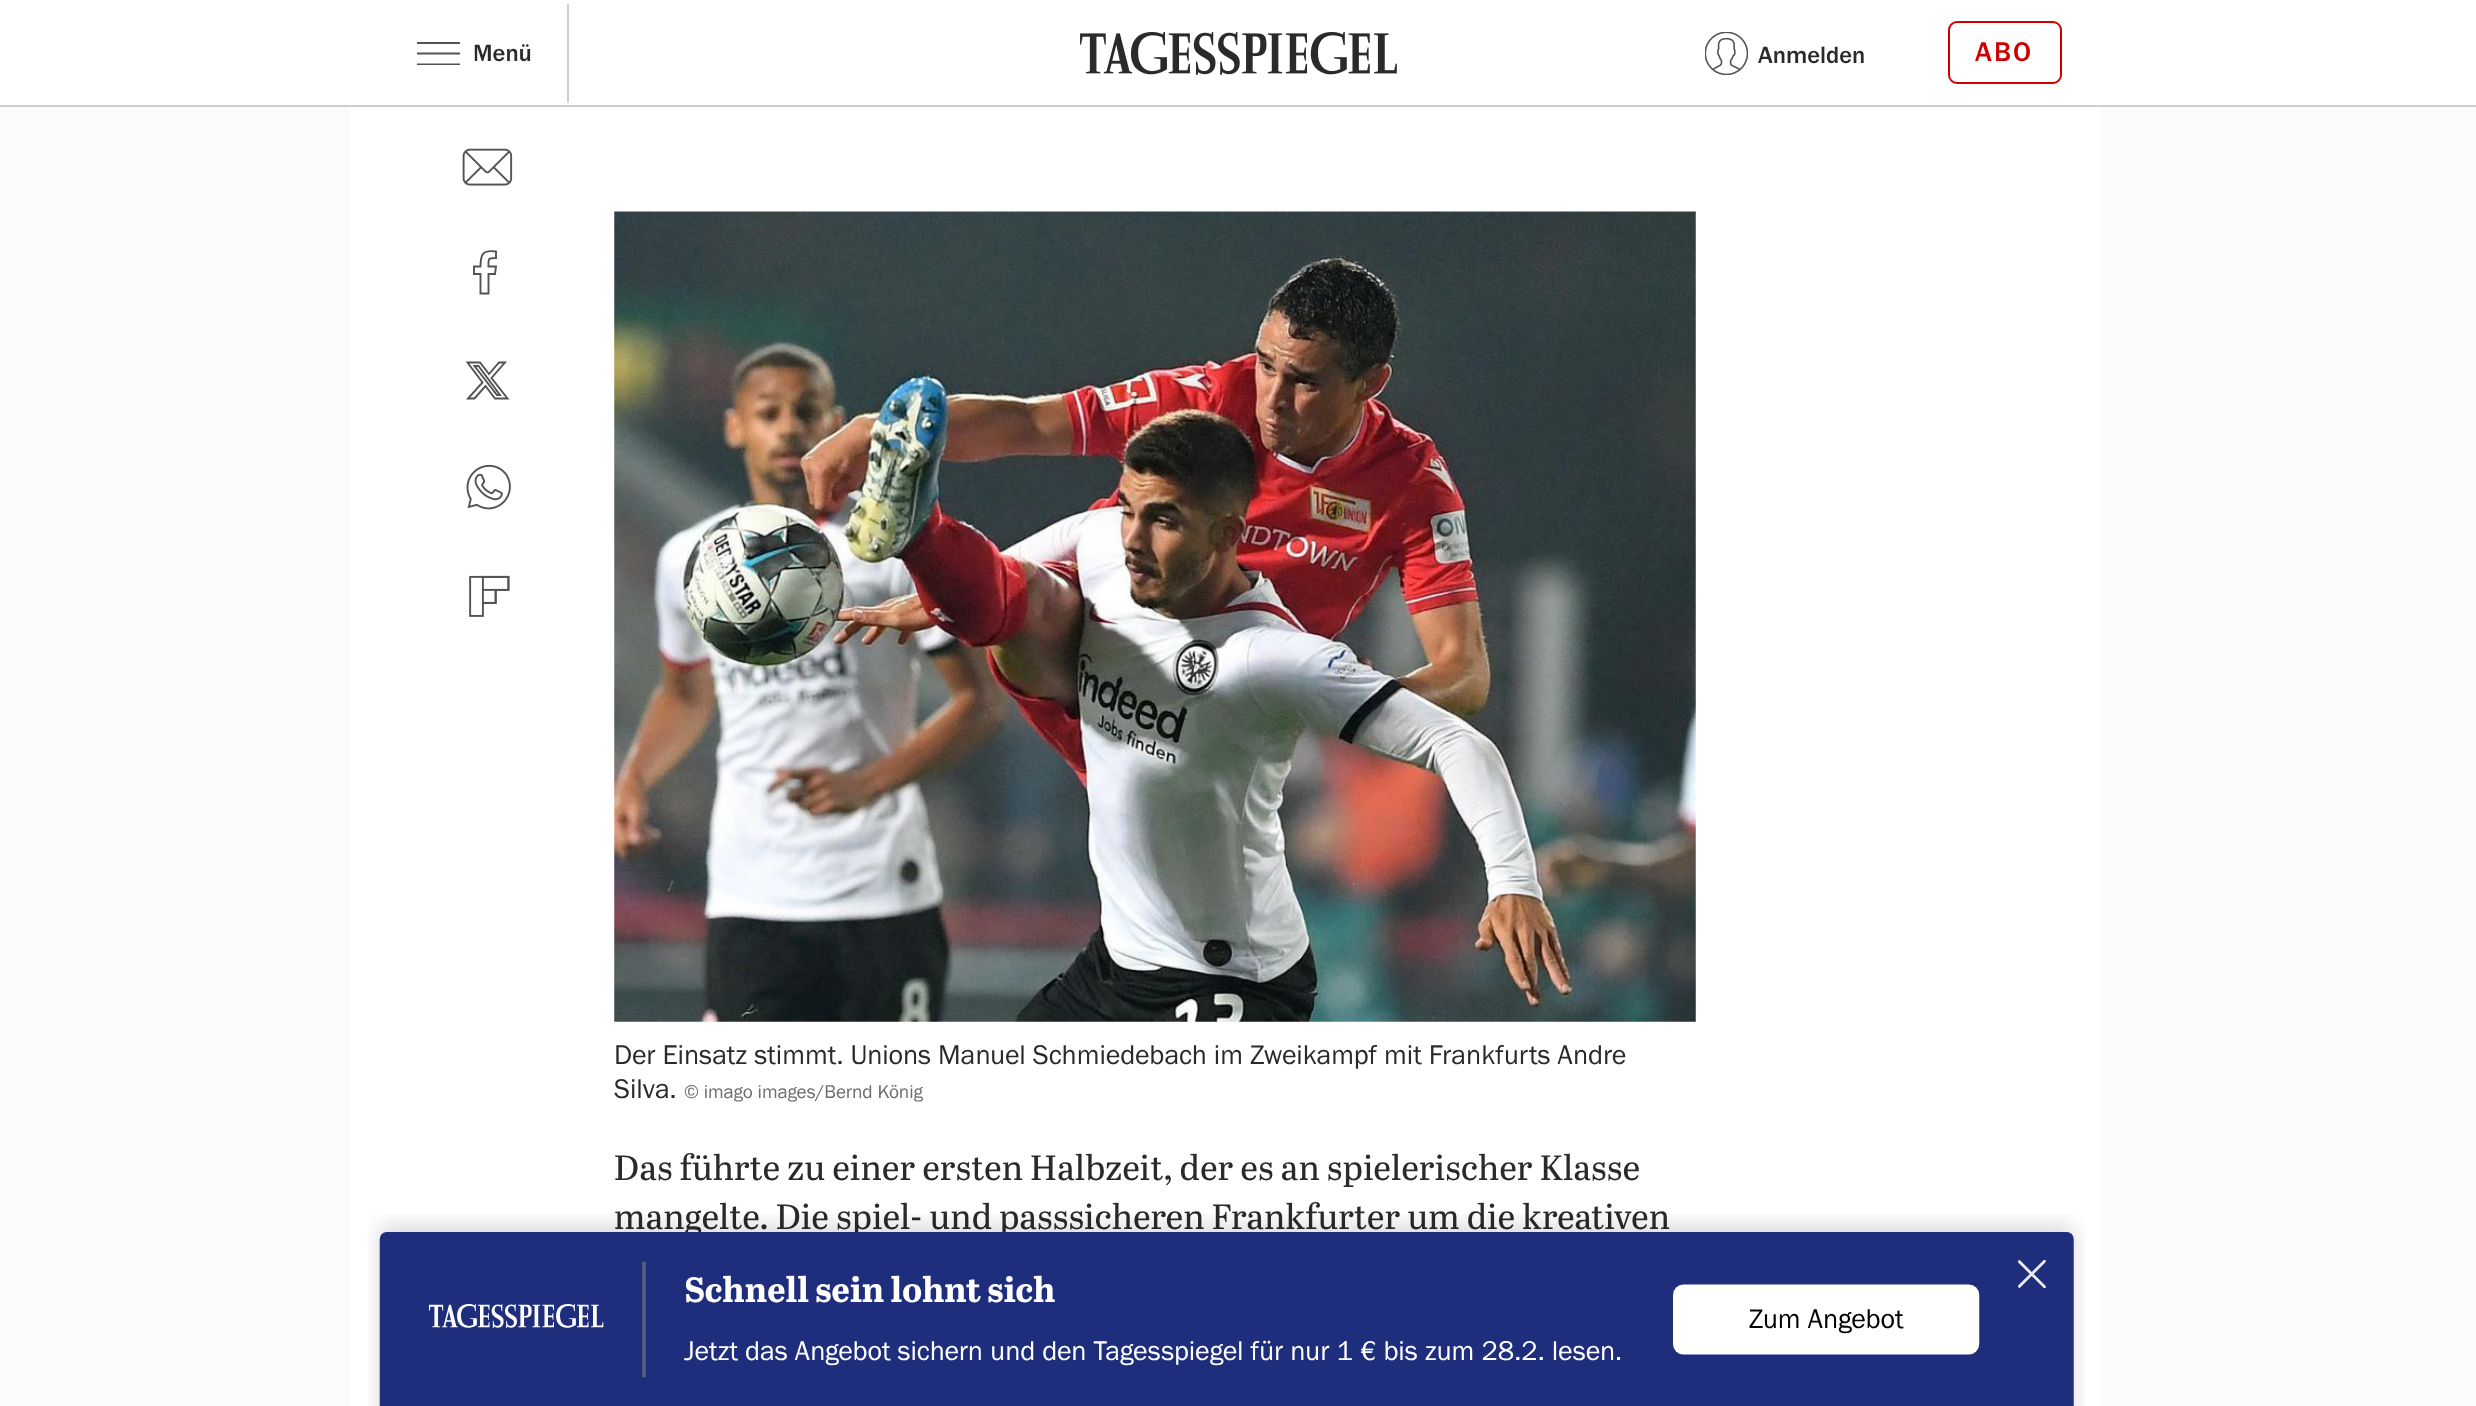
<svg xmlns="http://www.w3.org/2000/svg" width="2476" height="1406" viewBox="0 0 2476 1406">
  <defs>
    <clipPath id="clip1"><rect x="417" y="42" width="43" height="23"/></clipPath>
  </defs>
  <rect width="100%" height="100%" fill="rgb(251,251,251)"/>
  <rect x="2098" y="107" width="2" height="1299" fill="rgb(255,255,255)"/>
  <rect x="350" y="107" width="1748" height="1299" fill="rgb(255,255,255)"/>
  <rect x="0" y="0" width="2476" height="105" fill="rgb(255,255,255)"/>
  <rect x="0" y="105" width="2476" height="2" fill="rgb(205,205,205)"/>
  <rect x="567" y="4" width="2" height="99" fill="rgb(205,205,205)"/>
  <g clip-path="url(#clip1)">
    <path d="M416.5 43H460M416.5 53.5H460M416.5 64.5H460" fill="none" stroke="rgb(83,83,83)" stroke-width="2.2"/>
  </g>
  <text x="473" y="61" font-family="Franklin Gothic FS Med" font-size="24.5" font-weight="500" fill="rgb(42,42,42)">Menü</text>
  <image x="1080" y="32" width="317" height="43" href="pic1.png"/>
  <image x="1705" y="32" width="43" height="43" href="pic2.png"/>
  <text x="1758" y="63" font-family="Franklin Gothic FS Med" font-size="24.5" font-weight="500" fill="rgb(42,42,42)">Anmelden</text>
  <rect x="1949" y="22" width="112" height="61" rx="8" fill="none" stroke="rgb(206,0,0)" stroke-width="2"/>
  <text x="1975" y="61" font-family="Franklin Gothic FS Med" font-size="28" font-weight="500" letter-spacing="2" fill="rgb(206,0,0)">ABO</text>
  <image x="462" y="148" width="51" height="38" href="pic3.png"/>
  <path d="M488.5 293.5V274H495L496 266.5H488.5C488.5 258.5 487.5 258 496 258V251.5C483 249.5 480.5 254 480.5 266.5H474V274H480.5V293.5Z" fill="none" stroke="rgb(83,83,83)" stroke-width="1.9"/>
  <path d="M499 362.5H505L491.5 378L507.5 398.5H495L485.5 386L474.5 398.5H468L482.5 382.5L467.5 362.5H480L489 374ZM497 395H500L478.5 366H474.5Z" fill="none" stroke="rgb(83,83,83)" stroke-width="1.9"/>
  <image x="466" y="464" width="45" height="46" href="pic4.png"/>
  <image x="469" y="575" width="41" height="42" href="pic5.png"/>
  <image x="614" y="211" width="1082" height="811" href="pic6.png"/>
  <g font-family="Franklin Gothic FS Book" font-size="28" fill="rgb(42,42,42)">
    <text>
      <tspan x="614" y="1064">Der Einsatz stimmt. Unions Manuel Schmiedebach im Zweikampf mit Frankfurts Andre</tspan>
      <tspan x="614" y="1098">Silva.</tspan>
    </text>
  </g>
  <text x="684" y="1098" font-family="Franklin Gothic FS Book" font-size="19.25" fill="rgb(109,109,109)">© imago images/Bernd König</text>
  <g font-family="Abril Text" font-size="35" fill="rgb(42,42,42)">
    <text>
      <tspan x="614" y="1180">Das führte zu einer ersten Halbzeit, der es an spielerischer Klasse</tspan>
      <tspan x="614" y="1229">mangelte. Die spiel- und passsicheren Frankfurter um die kreativen</tspan>
    </text>
  </g>
  <image x="368" y="1214" width="1717" height="192" href="pic7.png"/>
</svg>
